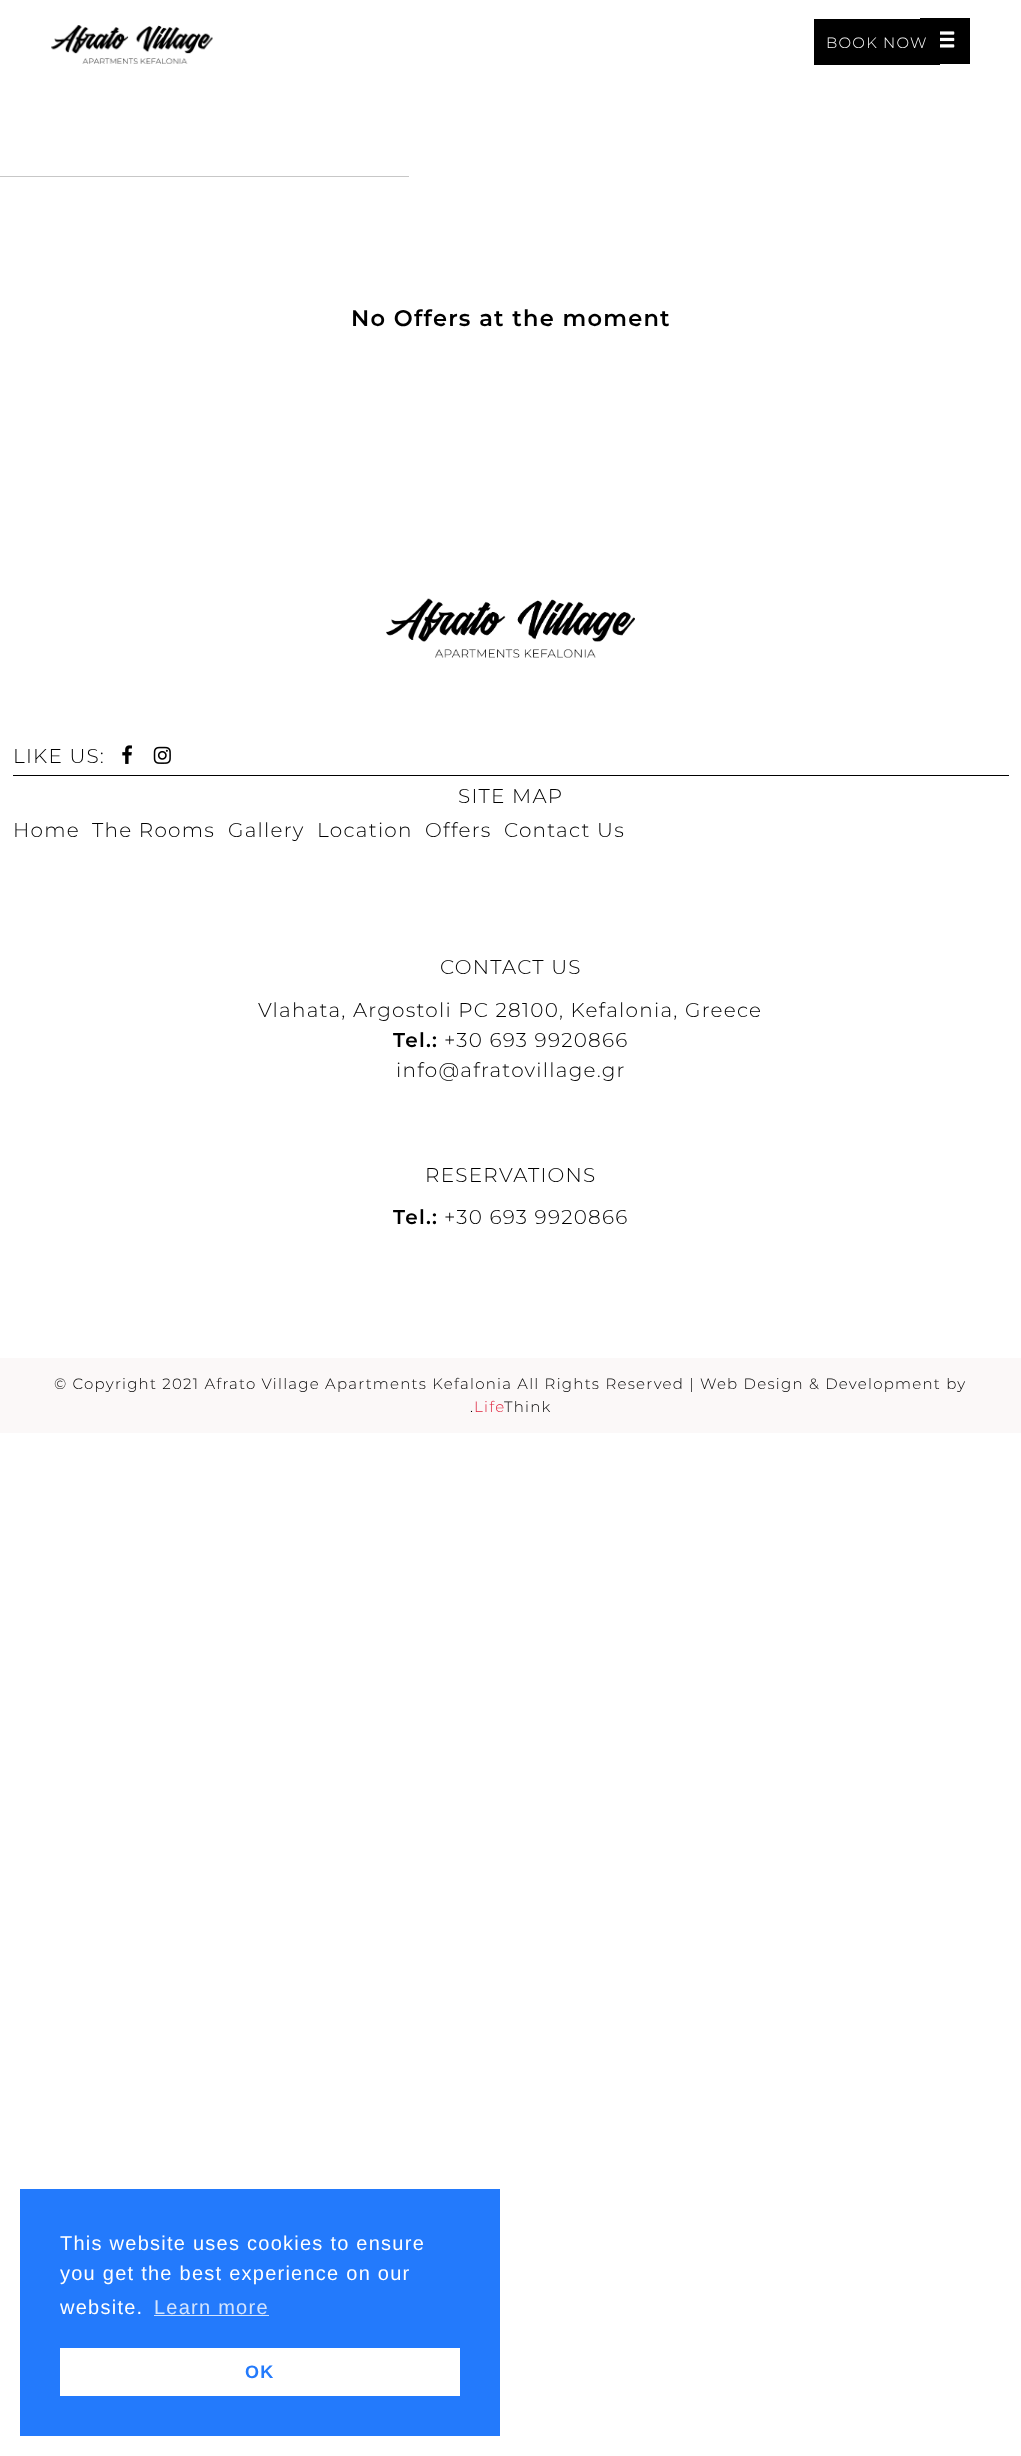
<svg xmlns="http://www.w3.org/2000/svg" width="1021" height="2456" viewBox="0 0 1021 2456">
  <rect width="100%" height="100%" fill="rgb(255,255,255)"/>
  <image x="51" y="25" width="162" height="39" href="pic1.png"/>
  <rect x="920" y="18" width="50" height="46" fill="rgb(0,0,0)"/>
  <image x="940" y="31" width="15" height="17" href="pic2.png"/>
  <rect x="814" y="19" width="126" height="46" fill="rgb(0,0,0)"/>
  <text x="826" y="48" font-family="Montserrat" font-size="15" font-weight="300" letter-spacing="1.25" fill="rgb(255,255,255)">BOOK NOW</text>
  <rect x="0" y="176" width="409" height="1" fill="rgb(199,199,199)"/>
  <text x="351" y="326" font-family="Montserrat" font-size="22.5" font-weight="600" letter-spacing="1.25" fill="rgb(0,0,0)">No Offers at the moment</text>
  <image x="386" y="598" width="249" height="60" href="pic3.png"/>
  <text x="13" y="763" font-family="Montserrat" font-size="20" font-weight="300" letter-spacing="1.25" fill="rgb(0,0,0)">LIKE US:</text>
  <image x="122" y="745" width="10" height="19" href="pic4.png"/>
  <image x="153" y="746" width="18" height="18" href="pic5.png"/>
  <rect x="13" y="775" width="996" height="1" fill="rgb(0,0,0)"/>
  <g font-family="Montserrat" font-size="20" font-weight="300" letter-spacing="1.25" fill="rgb(0,0,0)">
    <text x="458" y="803">SITE MAP</text>
    <text x="13" y="837">Home</text>
    <text x="92" y="837">The Rooms</text>
    <text x="228" y="837">Gallery</text>
    <text x="317" y="837">Location</text>
    <text x="425" y="837">Offers</text>
    <text x="504" y="837">Contact Us</text>
    <text x="440" y="974">CONTACT US</text>
    <text x="258" y="1017">Vlahata, Argostoli PC 28100, Kefalonia, Greece</text>
  </g>
  <text x="393" y="1047" font-family="Montserrat" font-size="20" font-weight="600" letter-spacing="1.25" fill="rgb(0,0,0)">Tel.:</text>
  <g font-family="Montserrat" font-size="20" font-weight="300" letter-spacing="1.25" fill="rgb(0,0,0)">
    <text x="444" y="1047">+30 693 9920866</text>
    <text x="396" y="1077">info@afratovillage.gr</text>
    <text x="425" y="1182">RESERVATIONS</text>
  </g>
  <text x="393" y="1224" font-family="Montserrat" font-size="20" font-weight="600" letter-spacing="1.25" fill="rgb(0,0,0)">Tel.:</text>
  <text x="444" y="1224" font-family="Montserrat" font-size="20" font-weight="300" letter-spacing="1.25" fill="rgb(0,0,0)">+30 693 9920866</text>
  <rect x="0" y="1358" width="1021" height="75" fill="rgb(251,248,248)"/>
  <g font-family="Montserrat" font-size="15" font-weight="300" letter-spacing="1.25" fill="rgb(0,0,0)">
    <text x="54" y="1389">© Copyright 2021 Afrato Village Apartments Kefalonia All Rights Reserved | Web Design &amp; Development by</text>
    <text x="470" y="1412">.</text>
  </g>
  <text x="474" y="1412" font-family="Montserrat" font-size="15" font-weight="300" letter-spacing="1.25" fill="rgb(222,31,57)">Life</text>
  <text x="504" y="1412" font-family="Montserrat" font-size="15" font-weight="300" letter-spacing="1.25" fill="rgb(0,0,0)">Think</text>
  <rect x="20" y="2189" width="480" height="247" fill="rgb(35,122,252)"/>
  <g font-family="Liberation Sans" font-size="20" letter-spacing="1.25" fill="rgb(255,255,255)">
    <text>
      <tspan x="60" y="2250">This website uses cookies to ensure</tspan>
      <tspan x="60" y="2280">you get the best experience on our</tspan>
      <tspan x="60" y="2314">website.</tspan>
    </text>
  </g>
  <text x="154" y="2314" font-family="Liberation Sans" font-size="20" letter-spacing="1.25" fill="rgb(211,228,254)">Learn more</text>
  <rect x="154" y="2315" width="115" height="1" fill="rgb(211,228,254)"/>
  <rect x="60" y="2348" width="400" height="48" fill="rgb(255,255,255)"/>
  <text x="245" y="2378" font-family="Liberation Sans" font-size="18" font-weight="bold" letter-spacing="1.25" fill="rgb(35,122,252)">OK</text>
</svg>
